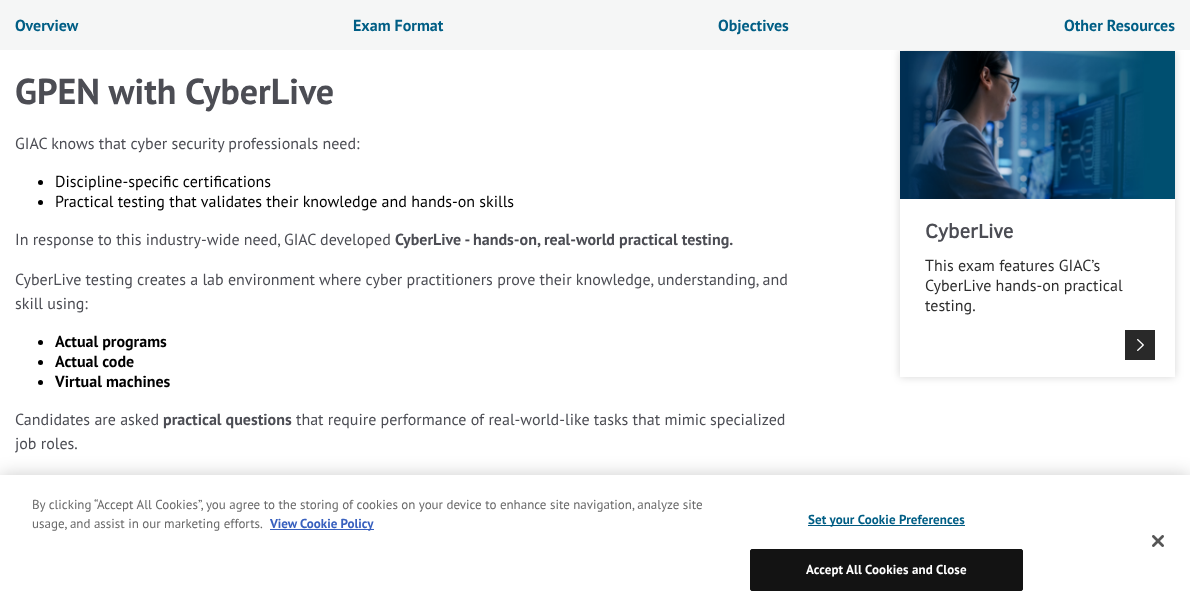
<svg xmlns="http://www.w3.org/2000/svg" width="1190" height="611" viewBox="0 0 1190 611">
  <defs>
    <clipPath id="clip1"><path d="M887 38H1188V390H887ZM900 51H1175V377H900Z" clip-rule="evenodd"/></clipPath>
  </defs>
  <rect width="100%" height="100%" fill="rgb(255,255,255)"/>
  <g clip-path="url(#clip1)">
    <rect x="900" y="51" width="275" height="326" fill="rgba(0,0,0,0.16)" filter="blur(4px)"/>
  </g>
  <rect x="0" y="0" width="1190" height="50" fill="rgb(245,246,246)"/>
  <g font-family="PT Sans" font-size="16" font-weight="bold" fill="rgb(0,94,133)">
    <text x="15" y="31">Overview</text>
    <text x="353" y="31">Exam Format</text>
    <text x="718" y="31">Objectives</text>
    <text x="1064" y="31">Other Resources</text>
  </g>
  <text x="15" y="104" font-family="PT Sans" font-size="36" font-weight="bold" fill="rgb(76,77,84)">GPEN with CyberLive</text>
  <text x="15" y="149" font-family="PT Sans" font-size="16" fill="rgb(76,77,84)">GIAC knows that cyber security professionals need:</text>
  <circle cx="40.5" cy="182.5" r="2.5" fill="rgb(0,0,0)"/>
  <text x="55" y="187" font-family="PT Sans" font-size="16" fill="rgb(0,0,0)">Discipline-specific certifications</text>
  <circle cx="40.5" cy="202.5" r="2.5" fill="rgb(0,0,0)"/>
  <text x="55" y="207" font-family="PT Sans" font-size="16" fill="rgb(0,0,0)">Practical testing that validates their knowledge and hands-on skills</text>
  <text x="15" y="245" font-family="PT Sans" font-size="16" fill="rgb(76,77,84)">In response to this industry-wide need, GIAC developed</text>
  <text x="395" y="245" font-family="PT Sans" font-size="16" font-weight="bold" fill="rgb(76,77,84)">CyberLive - hands-on, real-world practical testing.</text>
  <g font-family="PT Sans" font-size="16" fill="rgb(76,77,84)">
    <text>
      <tspan x="15" y="285">CyberLive testing creates a lab environment where cyber practitioners prove their knowledge, understanding, and</tspan>
      <tspan x="15" y="309">skill using:</tspan>
    </text>
  </g>
  <circle cx="40.5" cy="342.5" r="2.5" fill="rgb(0,0,0)"/>
  <text x="55" y="347" font-family="PT Sans" font-size="16" font-weight="bold" fill="rgb(0,0,0)">Actual programs</text>
  <circle cx="40.5" cy="362.5" r="2.5" fill="rgb(0,0,0)"/>
  <text x="55" y="367" font-family="PT Sans" font-size="16" font-weight="bold" fill="rgb(0,0,0)">Actual code</text>
  <circle cx="40.5" cy="382.5" r="2.5" fill="rgb(0,0,0)"/>
  <text x="55" y="387" font-family="PT Sans" font-size="16" font-weight="bold" fill="rgb(0,0,0)">Virtual machines</text>
  <text x="15" y="425" font-family="PT Sans" font-size="16" fill="rgb(76,77,84)">Candidates are asked</text>
  <text x="163" y="425" font-family="PT Sans" font-size="16" font-weight="bold" fill="rgb(76,77,84)">practical questions</text>
  <g font-family="PT Sans" font-size="16" fill="rgb(76,77,84)">
    <text x="296" y="425">that require performance of real-world-like tasks that mimic specialized</text>
    <text x="15" y="449">job roles.</text>
  </g>
  <image x="900" y="51" width="275" height="148" href="pic1.png"/>
  <text x="925" y="238" font-family="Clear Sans" font-size="20" font-weight="bold" fill="rgb(76,77,84)">CyberLive</text>
  <g font-family="PT Sans" font-size="16" fill="rgb(46,46,46)">
    <text>
      <tspan x="925" y="271">This exam features GIAC’s</tspan>
      <tspan x="925" y="291">CyberLive hands-on practical</tspan>
      <tspan x="925" y="311">testing.</tspan>
    </text>
  </g>
  <rect x="1125" y="330" width="30" height="30" fill="rgb(41,41,41)"/>
  <image x="1137" y="339" width="7" height="12" href="pic2.png"/>
  <rect x="0" y="475" width="1190" height="136" fill="rgba(0,0,0,0.2)" filter="blur(9px)"/>
  <rect x="0" y="475" width="1190" height="136" fill="rgb(255,255,255)"/>
  <g font-family="PT Sans" font-size="13" fill="rgb(105,105,105)">
    <text>
      <tspan x="32" y="509">By clicking “Accept All Cookies”, you agree to the storing of cookies on your device to enhance site navigation, analyze site</tspan>
      <tspan x="32" y="528">usage, and assist in our marketing efforts.</tspan>
    </text>
  </g>
  <rect x="270" y="529" width="104" height="1" fill="rgb(56,96,190)"/>
  <text x="270" y="528" font-family="PT Sans" font-size="13" font-weight="bold" fill="rgb(56,96,190)">View Cookie Policy</text>
  <rect x="808" y="525" width="157" height="1" fill="rgb(0,89,128)"/>
  <text x="808" y="524" font-family="PT Sans" font-size="13" font-weight="bold" letter-spacing="0.1" fill="rgb(0,94,133)">Set your Cookie Preferences</text>
  <rect x="750.5" y="549.5" width="272" height="41" rx="1.5" fill="rgb(19,19,19)" stroke="rgb(19,19,19)"/>
  <text x="806" y="574" font-family="PT Sans" font-size="13" font-weight="bold" letter-spacing="0.1" fill="rgb(255,255,255)">Accept All Cookies and Close</text>
  <image x="1152" y="535" width="12" height="12" href="pic3.png"/>
</svg>
